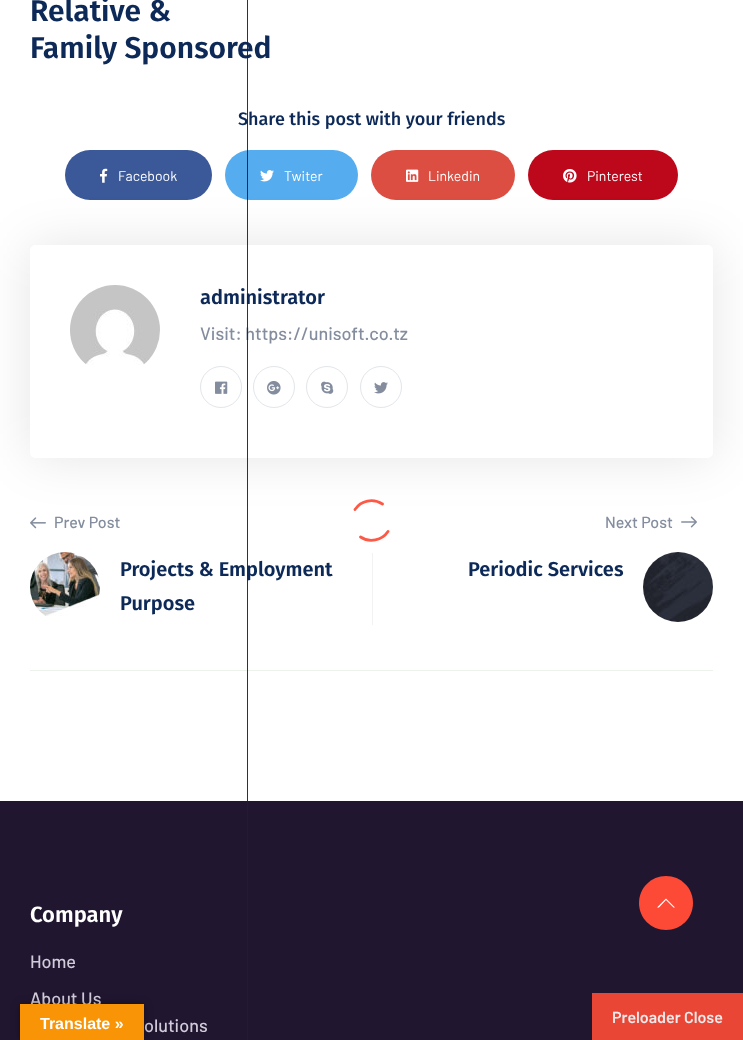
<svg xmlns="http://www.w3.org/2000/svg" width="743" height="1040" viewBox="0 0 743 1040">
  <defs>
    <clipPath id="clip1"><path d="M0 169H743V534H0ZM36 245H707C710.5 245 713 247.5 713 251V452C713 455.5 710.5 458 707 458H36C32.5 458 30 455.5 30 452V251C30 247.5 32.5 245 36 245Z" clip-rule="evenodd"/></clipPath>
  </defs>
  <rect width="100%" height="100%" fill="rgb(255,255,255)"/>
  <g font-family="Fira Sans" font-size="30" font-weight="600" fill="rgb(12,41,87)">
    <text>
      <tspan x="30" y="21">Relative &amp;</tspan>
      <tspan x="30" y="58">Family Sponsored</tspan>
    </text>
  </g>
  <text x="238" y="125" font-family="Fira Sans" font-size="18" font-weight="500" fill="rgb(12,41,87)">Share this post with your friends</text>
  <rect x="65" y="150" width="147" height="50" rx="25" fill="rgb(59,89,152)"/>
  <image x="100" y="168" width="8" height="15" href="pic1.png"/>
  <text x="118" y="181" font-family="Barlow" font-size="14" fill="rgb(255,255,255)">Facebook</text>
  <rect x="225" y="150" width="133" height="50" rx="25" fill="rgb(85,172,238)"/>
  <image x="260" y="170" width="14" height="12" href="pic2.png"/>
  <text x="284" y="181" font-family="Barlow" font-size="14" fill="rgb(255,255,255)">Twiter</text>
  <rect x="371" y="150" width="144" height="50" rx="25" fill="rgb(220,78,65)"/>
  <image x="406" y="169" width="13" height="13" href="pic3.png"/>
  <text x="428" y="181" font-family="Barlow" font-size="14" fill="rgb(255,255,255)">Linkedin</text>
  <rect x="528" y="150" width="150" height="50" rx="25" fill="rgb(189,8,28)"/>
  <image x="563" y="169" width="14" height="14" href="pic4.png"/>
  <text x="587" y="181" font-family="Barlow" font-size="14" fill="rgb(255,255,255)">Pinterest</text>
  <g clip-path="url(#clip1)">
    <rect x="30" y="245" width="683" height="213" rx="6" fill="rgba(0,0,0,0.1)" filter="blur(25px)"/>
  </g>
  <image x="70" y="285" width="90" height="80" href="pic5.png"/>
  <text x="200" y="304" font-family="Fira Sans" font-size="20" font-weight="600" fill="rgb(12,41,87)">administrator</text>
  <text x="200" y="340" font-family="Barlow" font-size="18" font-weight="500" fill="rgb(131,141,158)">Visit: https://unisoft.co.tz</text>
  <circle cx="221" cy="387" r="20.5" fill="none" stroke="rgb(226,230,234)"/>
  <image x="215" y="381" width="13" height="13" href="pic6.png"/>
  <circle cx="274" cy="387" r="20.5" fill="none" stroke="rgb(226,230,234)"/>
  <image x="267" y="381" width="14" height="14" href="pic7.png"/>
  <circle cx="327" cy="387" r="20.5" fill="none" stroke="rgb(226,230,234)"/>
  <image x="321" y="381" width="13" height="13" href="pic8.png"/>
  <circle cx="381" cy="387" r="20.5" fill="none" stroke="rgb(226,230,234)"/>
  <image x="374" y="382" width="14" height="12" href="pic9.png"/>
  <rect x="30" y="670" width="683" height="1" fill="rgb(238,242,237)"/>
  <image x="30" y="517" width="16" height="12" href="pic10.png"/>
  <text x="54" y="528" font-family="Barlow" font-size="16" font-weight="500" fill="rgb(131,141,158)">Prev Post</text>
  <image x="30" y="552" width="70" height="64" href="pic11.png"/>
  <g font-family="Fira Sans" font-size="20" font-weight="600" fill="rgb(12,41,87)">
    <text>
      <tspan x="120" y="576">Projects &amp; Employment</tspan>
      <tspan x="120" y="610">Purpose</tspan>
    </text>
  </g>
  <text x="605" y="528" font-family="Barlow" font-size="16" font-weight="500" fill="rgb(131,141,158)">Next Post</text>
  <image x="681" y="516" width="16" height="12" href="pic12.png"/>
  <text x="468" y="576" font-family="Fira Sans" font-size="20" font-weight="600" fill="rgb(12,41,87)">Periodic Services</text>
  <image x="643" y="552" width="70" height="70" href="pic13.png"/>
  <rect x="372" y="553" width="1" height="72" fill="rgb(242,242,242)"/>
  <rect x="0" y="801" width="743" height="239" fill="rgb(32,22,48)"/>
  <text x="30" y="922" font-family="Fira Sans" font-size="22" font-weight="600" fill="rgb(255,255,255)">Company</text>
  <g font-family="Barlow" font-size="18" font-weight="500" fill="rgb(210,204,218)">
    <text x="30" y="968">Home</text>
    <text x="30" y="1005">About Us</text>
    <text x="144" y="1032">olutions</text>
  </g>
  <rect x="247" y="0" width="1" height="1040" fill="rgba(10,39,61,0.92)"/>
  <path d="M355 509.5C361 500.5 373 498 382.5 504M388 531.5C382 540.5 369.5 543 360.5 537" fill="none" stroke="rgb(253,89,71)" stroke-width="2.8" stroke-linecap="round"/>
  <rect x="592" y="993" width="151" height="47" fill="rgb(234,70,53)"/>
  <text x="612" y="1023" font-family="Barlow" font-size="16" font-weight="600" fill="rgb(236,235,237)">Preloader Close</text>
  <path d="M639 903C639 888 651 876 666 876C681 876 693 888 693 903C693 918 681 930 666 930C651 930 639 918 639 903Z" fill="rgb(253,74,54)"/>
  <path d="M666 900L659 907.5H657L666 898.5L675 907.5H673.5Z" fill="rgb(255,255,255)"/>
  <rect x="20" y="1004" width="124" height="36" fill="rgba(0,0,0,0.3)" filter="blur(4.5px)"/>
  <rect x="20" y="1004" width="124" height="36" fill="rgb(248,148,6)"/>
  <text x="40" y="1029" font-family="Liberation Sans" font-size="16" font-weight="bold" fill="rgb(255,255,255)">Translate »</text>
</svg>
